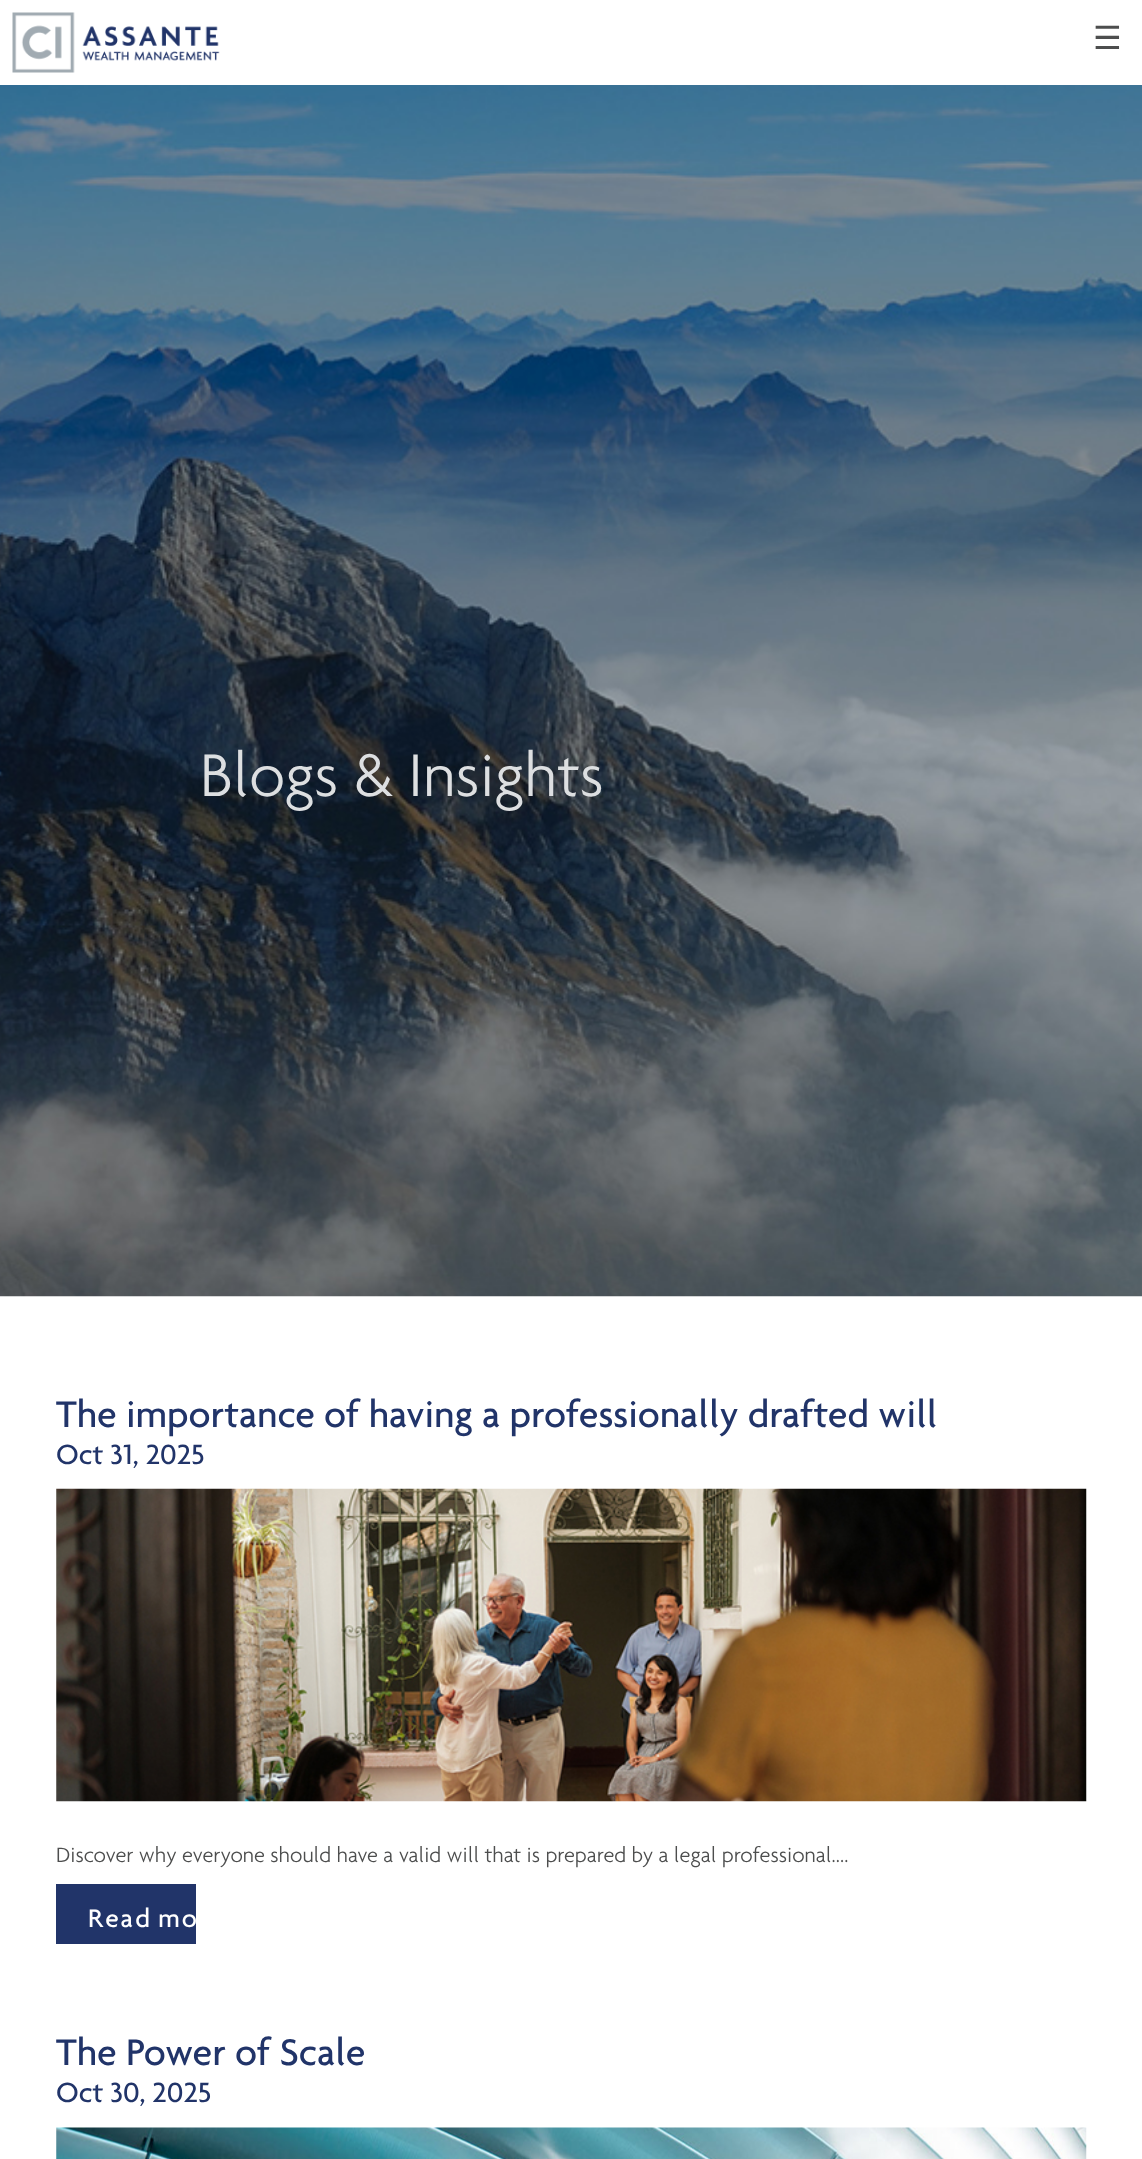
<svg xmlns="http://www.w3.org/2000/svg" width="1142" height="2159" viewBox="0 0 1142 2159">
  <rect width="100%" height="100%" fill="rgb(255,255,255)"/>
  <image x="12" y="12" width="208" height="61" href="pic1.png"/>
  <text x="1093" y="49" font-family="DejaVu Sans" font-size="32" fill="rgb(77,78,78)">☰</text>
  <image x="0" y="85" width="1142" height="1212" href="pic2.png"/>
  <text x="200" y="796" font-family="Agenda" font-size="65" font-weight="300" fill="rgb(221,223,225)">Blogs &amp; Insights</text>
  <text x="56" y="1427" font-family="Agenda" font-size="40" font-weight="500" fill="rgb(33,52,105)">The importance of having a professionally drafted will</text>
  <text x="56" y="1464" font-family="Agenda" font-size="30" font-weight="500" fill="rgb(33,52,105)">Oct 31, 2025</text>
  <image x="56" y="1488" width="1031" height="314" href="pic3.png"/>
  <text x="56" y="1862" font-family="Agenda" font-size="22.5" font-weight="300" fill="rgb(77,78,78)">Discover why everyone should have a valid will that is prepared by a legal professional....</text>
  <rect x="56" y="1884" width="140" height="60" fill="rgb(33,52,105)"/>
  <text x="88" y="1927" word-spacing="-2" font-family="Agenda" font-size="27.5" font-weight="500" letter-spacing="2" fill="rgb(255,255,255)">Read mo</text>
  <text x="56" y="2065" font-family="Agenda" font-size="40" font-weight="500" fill="rgb(33,52,105)">The Power of Scale</text>
  <text x="56" y="2102" font-family="Agenda" font-size="30" font-weight="500" fill="rgb(33,52,105)">Oct 30, 2025</text>
  <image x="56" y="2127" width="1031" height="32" href="pic4.png"/>
</svg>
